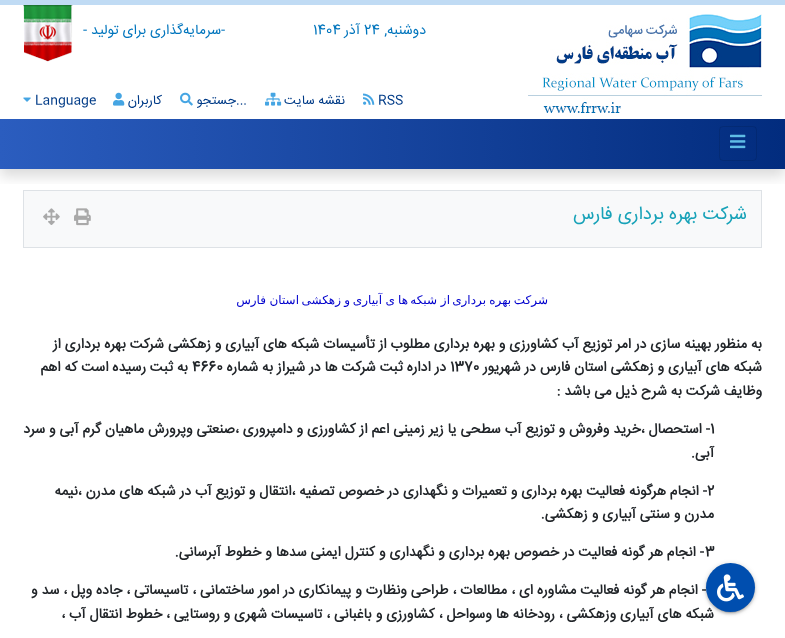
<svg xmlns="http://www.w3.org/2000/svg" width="785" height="638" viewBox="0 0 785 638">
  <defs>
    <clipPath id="clip1"><rect x="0" y="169" width="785" height="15"/></clipPath>
    <linearGradient id="g1" gradientUnits="userSpaceOnUse" x1="0" y1="144" x2="785" y2="144"><stop offset="0" stop-color="rgb(43,93,191)"/><stop offset="1" stop-color="rgb(2,44,126)"/></linearGradient>
  </defs>
  <rect width="100%" height="100%" fill="rgb(255,255,255)"/>
  <rect x="23.5" y="190.5" width="738" height="57" fill="rgb(248,249,250)" stroke="rgb(222,226,230)"/>
  <g clip-path="url(#clip1)">
    <rect x="0" y="7" width="785" height="169" fill="rgba(0,0,0,0.15)" filter="blur(7px)"/>
  </g>
  <rect x="0" y="0" width="785" height="5" fill="rgb(192,219,244)"/>
  <image x="528" y="14" width="234" height="99" href="pic1.png"/>
  <text x="426" y="34" font-family="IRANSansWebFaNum" font-size="14" direction="rtl" fill="rgb(0,117,189)">دوشنبه,</text>
  <text x="364" y="34" font-family="IRANSansWebFaNum" font-size="14" fill="rgb(0,117,189)">24</text>
  <text x="360" y="34" font-family="IRANSansWebFaNum" font-size="14" direction="rtl" fill="rgb(0,117,189)">آذر</text>
  <g font-family="IRANSansWebFaNum" font-size="14" fill="rgb(0,117,189)">
    <text x="313" y="34">1404</text>
    <text x="221" y="34">-</text>
  </g>
  <text x="221" y="34" font-family="IRANSansWebFaNum" font-size="14" direction="rtl" fill="rgb(0,117,189)">سرمایه‌گذاری برای تولید</text>
  <text x="83" y="34" font-family="IRANSansWebFaNum" font-size="14" fill="rgb(0,117,189)">-</text>
  <image x="23" y="5" width="50" height="57" href="pic2.png"/>
  <text x="378" y="104" font-family="IRANSansWebFaNum" font-size="13" fill="rgb(0,59,135)">RSS</text>
  <image x="363" y="93" width="12" height="12" href="pic3.png"/>
  <text x="345" y="104" font-family="IRANSansWebFaNum" font-size="13" direction="rtl" fill="rgb(0,59,135)">نقشه سایت</text>
  <image x="265" y="92" width="17" height="14" href="pic4.png"/>
  <text x="236" y="104" font-family="IRANSansWebFaNum" font-size="13" fill="rgb(0,59,135)">...</text>
  <text x="236" y="104" font-family="IRANSansWebFaNum" font-size="13" direction="rtl" fill="rgb(0,59,135)">جستجو</text>
  <image x="180" y="92" width="13" height="14" href="pic5.png"/>
  <text x="162" y="104" font-family="IRANSansWebFaNum" font-size="13" direction="rtl" fill="rgb(0,59,135)">کاربران</text>
  <image x="113" y="92" width="12" height="14" href="pic6.png"/>
  <text x="35" y="104" font-family="IRANSansWebFaNum" font-size="13" fill="rgb(0,59,135)">Language</text>
  <image x="23" y="97" width="8" height="5" href="pic7.png"/>
  <rect x="0" y="119" width="785" height="50" fill="url(#g1)"/>
  <rect x="719.5" y="126.5" width="37" height="34" rx="3.5" fill="none" stroke="rgba(0,0,0,0.1)"/>
  <image x="730" y="134" width="16" height="15" href="pic8.png"/>
  <text x="747" y="219" font-family="IRANSansWebFaNum" font-size="18.25" direction="rtl" fill="rgb(23,162,184)">شرکت بهره برداری فارس</text>
  <image x="74" y="208" width="17" height="18" href="pic9.png"/>
  <image x="43" y="208" width="17" height="17" href="pic10.png"/>
  <g font-family="DejaVu Sans" font-size="12" direction="rtl" fill="rgb(0,0,205)">
    <text x="548" y="304">شرکت</text>
    <text x="511" y="304">بهره</text>
    <text x="486" y="304">برداری</text>
    <text x="450" y="304">از</text>
    <text x="437" y="304">شبکه</text>
    <text x="408" y="304">ها</text>
    <text x="395" y="304">ی</text>
    <text x="382" y="304">آبیاری</text>
    <text x="350" y="304">و</text>
    <text x="341" y="304">زهکشی</text>
    <text x="299" y="304">استان</text>
    <text x="266" y="304">فارس</text>
  </g>
  <g font-family="IRANSansWebFaNum" font-size="14" font-weight="bold" direction="rtl" fill="rgb(33,37,41)">
    <text>
      <tspan x="762" y="348">به منظور بهینه سازی در امر توزیع آب کشاورزی و بهره برداری مطلوب از تأسیسات شبکه های آبیاری و زهکشی شرکت بهره برداری از</tspan>
      <tspan x="762" y="371">شبکه های آبیاری و زهکشی استان فارس در شهریور</tspan>
    </text>
  </g>
  <text x="450" y="371" font-family="IRANSansWebFaNum" font-size="14" font-weight="bold" fill="rgb(33,37,41)">1370</text>
  <text x="446" y="371" font-family="IRANSansWebFaNum" font-size="14" font-weight="bold" direction="rtl" fill="rgb(33,37,41)">در اداره ثبت شرکت ها در شیراز به شماره</text>
  <text x="192" y="371" font-family="IRANSansWebFaNum" font-size="14" font-weight="bold" fill="rgb(33,37,41)">4660</text>
  <g font-family="IRANSansWebFaNum" font-size="14" font-weight="bold" direction="rtl" fill="rgb(33,37,41)">
    <text x="188" y="371">به ثبت رسیده است که اهم</text>
    <text x="762" y="395">وظایف شرکت به شرح ذیل می باشد :</text>
  </g>
  <text x="710" y="433" font-family="IRANSansWebFaNum" font-size="14" font-weight="bold" fill="rgb(33,37,41)">1</text>
  <g font-family="IRANSansWebFaNum" font-size="14" font-weight="bold" direction="rtl" fill="rgb(33,37,41)">
    <text x="710" y="433">- استحصال ،خرید وفروش و توزیع آب سطحی یا زیر زمینی اعم از کشاورزی و دامپروری ،صنعتی وپرورش ماهیان گرم آبی و سرد</text>
    <text x="714" y="457">آبی.</text>
  </g>
  <text x="707" y="495" font-family="IRANSansWebFaNum" font-size="14" font-weight="bold" fill="rgb(33,37,41)">2</text>
  <g font-family="IRANSansWebFaNum" font-size="14" font-weight="bold" direction="rtl" fill="rgb(33,37,41)">
    <text x="707" y="495">- انجام هرگونه فعالیت بهره برداری و تعمیرات و نگهداری در خصوص تصفیه ،انتقال و توزیع آب در شبکه های مدرن ،نیمه</text>
    <text x="714" y="518">مدرن و سنتی آبیاری و زهکشی.</text>
    <text x="704" y="556">- انجام هر گونه فعالیت در خصوص بهره برداری و نگهداری و کنترل ایمنی سدها و خطوط آبرسانی.</text>
  </g>
  <text x="705" y="556" font-family="IRANSansWebFaNum" font-size="14" font-weight="bold" fill="rgb(33,37,41)">3</text>
  <g font-family="IRANSansWebFaNum" font-size="14" font-weight="bold" direction="rtl" fill="rgb(33,37,41)">
    <text x="706" y="594">- انجام هر گونه فعالیت مشاوره ای ، مطالعات ، طراحی ونظارت و پیمانکاری در امور ساختمانی ، تاسیساتی ، جاده وپل ، سد و</text>
    <text x="714" y="618">شبکه های آبیاری وزهکشی ، رودخانه ها وسواحل ، کشاورزی و باغبانی ، تاسیسات شهری و روستایی ، خطوط انتقال آب ،</text>
  </g>
  <rect x="706" y="564" width="49" height="49" rx="24.5" fill="rgba(0,0,0,0.2)" filter="blur(2.5px)"/>
  <rect x="708" y="568" width="45" height="45" rx="22.5" fill="rgba(0,0,0,0.12)" filter="blur(0.5px)"/>
  <rect x="706" y="565" width="49" height="49" rx="24.5" fill="rgba(0,0,0,0.14)" filter="blur(1px)"/>
  <circle cx="730.5" cy="587.5" r="24.5" fill="rgb(0,78,175)"/>
  <image x="717" y="574" width="27" height="28" href="pic11.png"/>
</svg>
